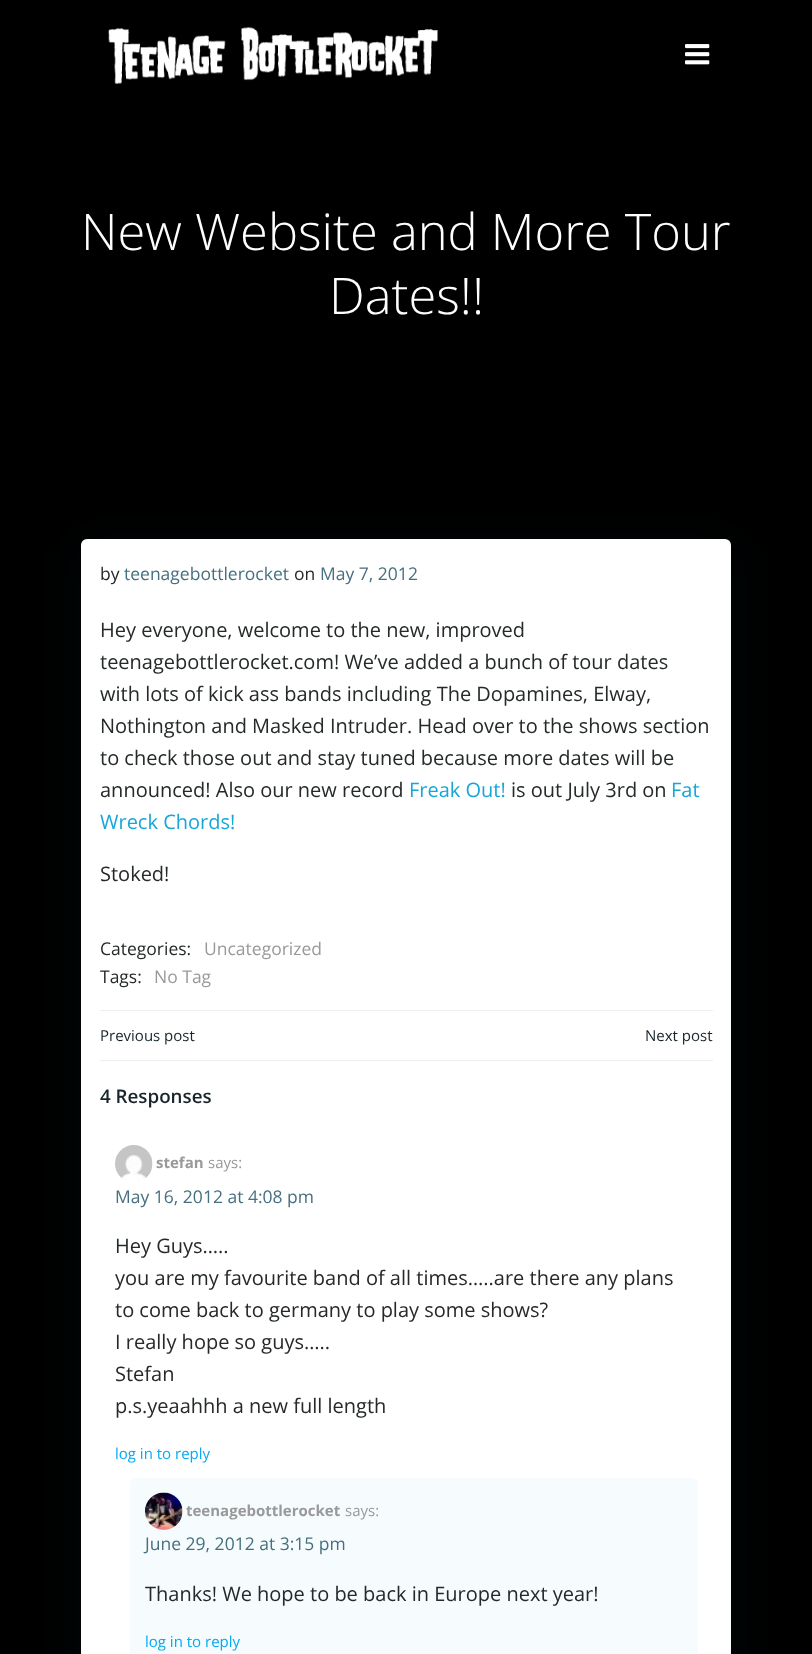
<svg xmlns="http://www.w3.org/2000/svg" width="812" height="1654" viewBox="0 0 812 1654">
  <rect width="100%" height="100%" fill="rgb(0,0,0)"/>
  <image x="108" y="27" width="330" height="57" href="pic1.png"/>
  <image x="685" y="44" width="25" height="21" href="pic2.png"/>
  <g font-family="Open Sans" font-size="50.6" font-weight="300" fill="rgb(255,255,255)">
    <text x="81" y="250">New Website and More Tour</text>
    <text x="329" y="314">Dates!!</text>
  </g>
  <rect x="81" y="551" width="650" height="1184" rx="6" fill="rgba(1,51,74,0.15)" filter="blur(25px)"/>
  <rect x="81" y="539" width="650" height="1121" rx="6" fill="rgb(255,255,255)"/>
  <text x="100" y="580" font-family="Open Sans" font-size="17.5" fill="rgb(37,41,42)">by</text>
  <text x="124" y="580" font-family="Open Sans" font-size="17.5" fill="rgb(70,112,127)">teenagebottlerocket</text>
  <text x="294" y="580" font-family="Open Sans" font-size="17.5" fill="rgb(37,41,42)">on</text>
  <text x="320" y="580" font-family="Open Sans" font-size="17.5" fill="rgb(70,112,127)">May 7, 2012</text>
  <g font-family="Open Sans" font-size="20" fill="rgb(37,41,42)">
    <text>
      <tspan x="100" y="637">Hey everyone, welcome to the new, improved</tspan>
      <tspan x="100" y="669">teenagebottlerocket.com! We’ve added a bunch of tour dates</tspan>
      <tspan x="100" y="701">with lots of kick ass bands including The Dopamines, Elway,</tspan>
      <tspan x="100" y="733">Nothington and Masked Intruder. Head over to the shows section</tspan>
      <tspan x="100" y="765">to check those out and stay tuned because more dates will be</tspan>
      <tspan x="100" y="797">announced! Also our new record</tspan>
    </text>
  </g>
  <text x="409" y="797" font-family="Open Sans" font-size="20" fill="rgb(22,166,216)">Freak Out!</text>
  <text x="511" y="797" font-family="Open Sans" font-size="20" fill="rgb(37,41,42)">is out July 3rd on</text>
  <g font-family="Open Sans" font-size="20" fill="rgb(22,166,216)">
    <text x="671" y="797">Fat</text>
    <text x="100" y="829">Wreck Chords!</text>
  </g>
  <text x="100" y="881" font-family="Open Sans" font-size="20" fill="rgb(37,41,42)">Stoked!</text>
  <text x="100" y="955" font-family="Open Sans" font-size="17.5" fill="rgb(37,41,42)">Categories:</text>
  <text x="204" y="955" font-family="Open Sans" font-size="17.5" fill="rgb(153,153,153)">Uncategorized</text>
  <text x="100" y="983" font-family="Open Sans" font-size="17.5" fill="rgb(37,41,42)">Tags:</text>
  <text x="154" y="983" font-family="Open Sans" font-size="17.5" fill="rgb(153,153,153)">No Tag</text>
  <rect x="100" y="1010" width="613" height="1" fill="rgb(238,238,238)"/>
  <g font-family="Open Sans" font-size="15" fill="rgb(23,37,42)">
    <text x="100" y="1041">Previous post</text>
    <text x="645" y="1041">Next post</text>
  </g>
  <rect x="100" y="1060" width="613" height="1" fill="rgb(238,238,238)"/>
  <text x="100" y="1103" font-family="Open Sans" font-size="18.75" font-weight="600" fill="rgb(23,37,42)">4 Responses</text>
  <image x="115" y="1145" width="38" height="35" href="pic3.png"/>
  <text x="156" y="1168" font-family="Open Sans" font-size="15" font-weight="bold" fill="rgb(153,153,153)">stefan</text>
  <text x="208" y="1168" font-family="Open Sans" font-size="15" fill="rgb(153,153,153)">says:</text>
  <text x="115" y="1203" font-family="Open Sans" font-size="17.5" fill="rgb(70,112,127)">May 16, 2012 at 4:08 pm</text>
  <g font-family="Open Sans" font-size="20" fill="rgb(37,41,42)">
    <text>
      <tspan x="115" y="1253">Hey Guys…..</tspan>
      <tspan x="115" y="1285">you are my favourite band of all times…..are there any plans</tspan>
      <tspan x="115" y="1317">to come back to germany to play some shows?</tspan>
      <tspan x="115" y="1349">I really hope so guys…..</tspan>
      <tspan x="115" y="1381">Stefan</tspan>
      <tspan x="115" y="1413">p.s.yeaahhh a new full length</tspan>
    </text>
  </g>
  <text x="115" y="1459" font-family="Open Sans" font-size="15" fill="rgb(3,169,244)">log in to reply</text>
  <rect x="130" y="1478" width="568" height="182" rx="6" fill="rgb(246,252,254)"/>
  <image x="145" y="1492" width="38" height="38" href="pic4.png"/>
  <text x="186" y="1516" font-family="Open Sans" font-size="15" font-weight="bold" fill="rgb(153,153,153)">teenagebottlerocket</text>
  <text x="345" y="1516" font-family="Open Sans" font-size="15" fill="rgb(153,153,153)">says:</text>
  <text x="145" y="1550" font-family="Open Sans" font-size="17.5" fill="rgb(70,112,127)">June 29, 2012 at 3:15 pm</text>
  <text x="145" y="1601" font-family="Open Sans" font-size="20" fill="rgb(37,41,42)">Thanks! We hope to be back in Europe next year!</text>
  <text x="145" y="1647" font-family="Open Sans" font-size="15" fill="rgb(3,169,244)">log in to reply</text>
</svg>
